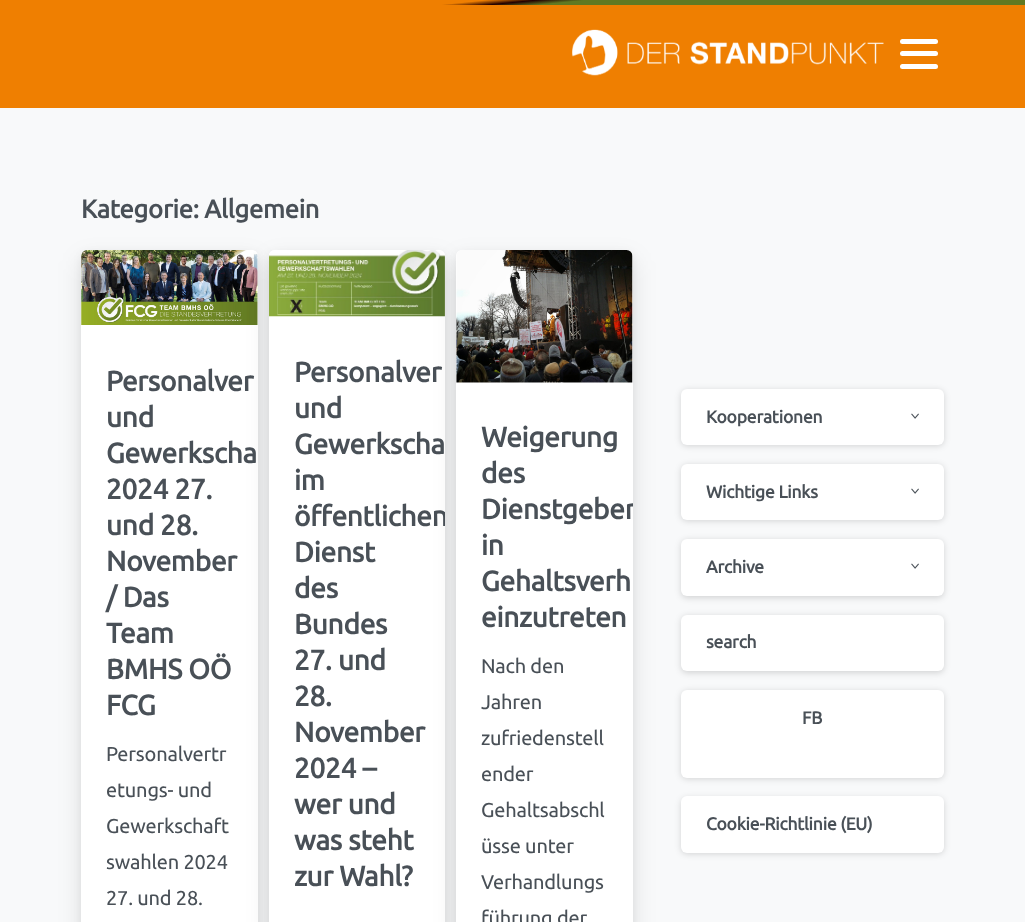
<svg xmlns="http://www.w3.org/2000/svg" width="1025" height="922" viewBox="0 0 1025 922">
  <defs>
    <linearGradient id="g1" gradientUnits="userSpaceOnUse" x1="512" y1="-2.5" x2="513" y2="7.5"><stop offset="0" stop-color="rgb(239,127,1)"/><stop offset="0.5" stop-color="rgb(35,0,0)"/><stop offset="1" stop-color="rgb(97,121,34)"/></linearGradient>
    <clipPath id="clip1"><rect x="269" y="250" width="176" height="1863" rx="6"/></clipPath>
    <clipPath id="clip2"><rect x="456" y="250" width="177" height="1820" rx="6"/></clipPath>
  </defs>
  <rect width="100%" height="100%" fill="rgb(248,249,250)"/>
  <rect x="0" y="0" width="1025" height="5" fill="url(#g1)"/>
  <rect x="0" y="5" width="1025" height="103" fill="rgb(239,127,1)"/>
  <image x="572" y="29" width="312" height="47" href="pic1.png"/>
  <rect x="900" y="51" width="38" height="5" rx="2.5" fill="rgb(255,255,255)"/>
  <rect x="900" y="39" width="38" height="5" rx="2.5" fill="rgb(255,255,255)"/>
  <rect x="900" y="64" width="38" height="5" rx="2.5" fill="rgb(255,255,255)"/>
  <text x="81" y="218" font-family="Ubuntu" font-size="25.5" font-weight="bold" letter-spacing="-0.25" fill="rgb(73,80,87)">Kategorie: Allgemein</text>
  <rect x="81" y="260" width="177" height="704" rx="6" fill="rgba(0,0,0,0.1)" filter="blur(12px)"/>
  <rect x="81" y="253" width="177" height="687" rx="6" fill="rgba(0,0,0,0.05)" filter="blur(4px)"/>
  <rect x="81" y="250" width="177" height="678" rx="6" fill="rgb(255,255,255)"/>
  <image x="81" y="250" width="177" height="75" href="pic2.png"/>
  <g font-family="Ubuntu" font-size="28" font-weight="bold" letter-spacing="-0.25" fill="rgb(73,80,87)">
    <text>
      <tspan x="106" y="391">Personalver</tspan>
      <tspan x="106" y="427">und</tspan>
      <tspan x="106" y="463">Gewerkscha</tspan>
      <tspan x="106" y="499">2024 27.</tspan>
      <tspan x="106" y="535">und 28.</tspan>
      <tspan x="106" y="571">November</tspan>
      <tspan x="106" y="607">/ Das</tspan>
      <tspan x="106" y="643">Team</tspan>
      <tspan x="106" y="679">BMHS OÖ</tspan>
      <tspan x="106" y="715">FCG</tspan>
    </text>
  </g>
  <g font-family="Ubuntu" font-size="20" letter-spacing="-0.2" fill="rgb(73,80,87)">
    <text>
      <tspan x="106" y="761">Personalvertr</tspan>
      <tspan x="106" y="797">etungs- und</tspan>
      <tspan x="106" y="833">Gewerkschaft</tspan>
      <tspan x="106" y="869">swahlen 2024</tspan>
      <tspan x="106" y="905">27. und 28.</tspan>
    </text>
  </g>
  <rect x="269" y="260" width="176" height="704" rx="6" fill="rgba(0,0,0,0.1)" filter="blur(12px)"/>
  <rect x="269" y="253" width="176" height="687" rx="6" fill="rgba(0,0,0,0.05)" filter="blur(4px)"/>
  <rect x="269" y="250" width="176" height="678" rx="6" fill="rgb(255,255,255)"/>
  <image x="269" y="250" width="176" height="67" href="pic3.png"/>
  <g font-family="Ubuntu" font-size="28" font-weight="bold" letter-spacing="-0.25" fill="rgb(73,80,87)">
    <text>
      <tspan x="294" y="382">Personalver</tspan>
      <tspan x="294" y="418">und</tspan>
      <tspan x="294" y="454">Gewerkscha</tspan>
      <tspan x="294" y="490">im</tspan>
    </text>
  </g>
  <g clip-path="url(#clip1)">
    <text x="294" y="526" font-family="Ubuntu" font-size="28" font-weight="bold" letter-spacing="-0.25" fill="rgb(73,80,87)">öffentlichen</text>
  </g>
  <g font-family="Ubuntu" font-size="28" font-weight="bold" letter-spacing="-0.25" fill="rgb(73,80,87)">
    <text>
      <tspan x="294" y="562">Dienst</tspan>
      <tspan x="294" y="598">des</tspan>
      <tspan x="294" y="634">Bundes</tspan>
      <tspan x="294" y="670">27. und</tspan>
      <tspan x="294" y="706">28.</tspan>
      <tspan x="294" y="742">November</tspan>
      <tspan x="294" y="778">2024 –</tspan>
      <tspan x="294" y="814">wer und</tspan>
      <tspan x="294" y="850">was steht</tspan>
      <tspan x="294" y="886">zur Wahl?</tspan>
    </text>
  </g>
  <rect x="456" y="260" width="177" height="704" rx="6" fill="rgba(0,0,0,0.1)" filter="blur(12px)"/>
  <rect x="456" y="253" width="177" height="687" rx="6" fill="rgba(0,0,0,0.05)" filter="blur(4px)"/>
  <rect x="456" y="250" width="177" height="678" rx="6" fill="rgb(255,255,255)"/>
  <image x="456" y="250" width="177" height="133" href="pic4.png"/>
  <g font-family="Ubuntu" font-size="28" font-weight="bold" letter-spacing="-0.25" fill="rgb(73,80,87)">
    <text>
      <tspan x="481" y="447">Weigerung</tspan>
      <tspan x="481" y="483">des</tspan>
    </text>
  </g>
  <g clip-path="url(#clip2)">
    <text x="481" y="519" font-family="Ubuntu" font-size="28" font-weight="bold" letter-spacing="-0.25" fill="rgb(73,80,87)">Dienstgeber</text>
  </g>
  <g font-family="Ubuntu" font-size="28" font-weight="bold" letter-spacing="-0.25" fill="rgb(73,80,87)">
    <text>
      <tspan x="481" y="555">in</tspan>
      <tspan x="481" y="591">Gehaltsverh</tspan>
      <tspan x="481" y="627">einzutreten</tspan>
    </text>
  </g>
  <g font-family="Ubuntu" font-size="20" letter-spacing="-0.2" fill="rgb(73,80,87)">
    <text>
      <tspan x="481" y="673">Nach den</tspan>
      <tspan x="481" y="709">Jahren</tspan>
      <tspan x="481" y="745">zufriedenstell</tspan>
      <tspan x="481" y="781">ender</tspan>
      <tspan x="481" y="817">Gehaltsabschl</tspan>
      <tspan x="481" y="853">üsse unter</tspan>
      <tspan x="481" y="889">Verhandlungs</tspan>
      <tspan x="481" y="925">führung der</tspan>
    </text>
  </g>
  <rect x="681" y="390" width="263" height="56" rx="6" fill="rgba(0,0,0,0.15)" filter="blur(3px)"/>
  <rect x="681" y="389" width="263" height="56" rx="6" fill="rgb(255,255,255)"/>
  <text x="706" y="423" font-family="Ubuntu" font-size="17.5" font-weight="bold" letter-spacing="-0.2" fill="rgb(73,80,87)">Kooperationen</text>
  <image x="911" y="413" width="8" height="6" href="pic5.png"/>
  <rect x="681" y="465" width="263" height="56" rx="6" fill="rgba(0,0,0,0.15)" filter="blur(3px)"/>
  <rect x="681" y="464" width="263" height="56" rx="6" fill="rgb(255,255,255)"/>
  <text x="706" y="498" font-family="Ubuntu" font-size="17.5" font-weight="bold" letter-spacing="-0.2" fill="rgb(73,80,87)">Wichtige Links</text>
  <image x="911" y="488" width="8" height="6" href="pic5.png"/>
  <rect x="681" y="540" width="263" height="58" rx="6" fill="rgba(0,0,0,0.15)" filter="blur(3px)"/>
  <rect x="681" y="539" width="263" height="57" rx="6" fill="rgb(255,255,255)"/>
  <text x="706" y="573" font-family="Ubuntu" font-size="17.5" font-weight="bold" letter-spacing="-0.2" fill="rgb(73,80,87)">Archive</text>
  <image x="911" y="563" width="8" height="6" href="pic5.png"/>
  <rect x="681" y="616" width="263" height="57" rx="6" fill="rgba(0,0,0,0.15)" filter="blur(3px)"/>
  <rect x="681" y="615" width="263" height="56" rx="6" fill="rgb(255,255,255)"/>
  <text x="706" y="648" font-family="Ubuntu" font-size="17.5" font-weight="bold" letter-spacing="-0.2" fill="rgb(73,80,87)">search</text>
  <rect x="681" y="691" width="263" height="88" rx="6" fill="rgba(0,0,0,0.15)" filter="blur(3px)"/>
  <rect x="681" y="690" width="263" height="88" rx="6" fill="rgb(255,255,255)"/>
  <text x="802" y="724" font-family="Ubuntu" font-size="17.5" font-weight="bold" letter-spacing="-0.2" fill="rgb(73,80,87)">FB</text>
  <rect x="681" y="798" width="263" height="56" rx="6" fill="rgba(0,0,0,0.15)" filter="blur(3px)"/>
  <rect x="681" y="796" width="263" height="57" rx="6" fill="rgb(255,255,255)"/>
  <text x="706" y="830" font-family="Ubuntu" font-size="17.5" font-weight="bold" letter-spacing="-0.2" fill="rgb(73,80,87)">Cookie-Richtlinie (EU)</text>
</svg>
